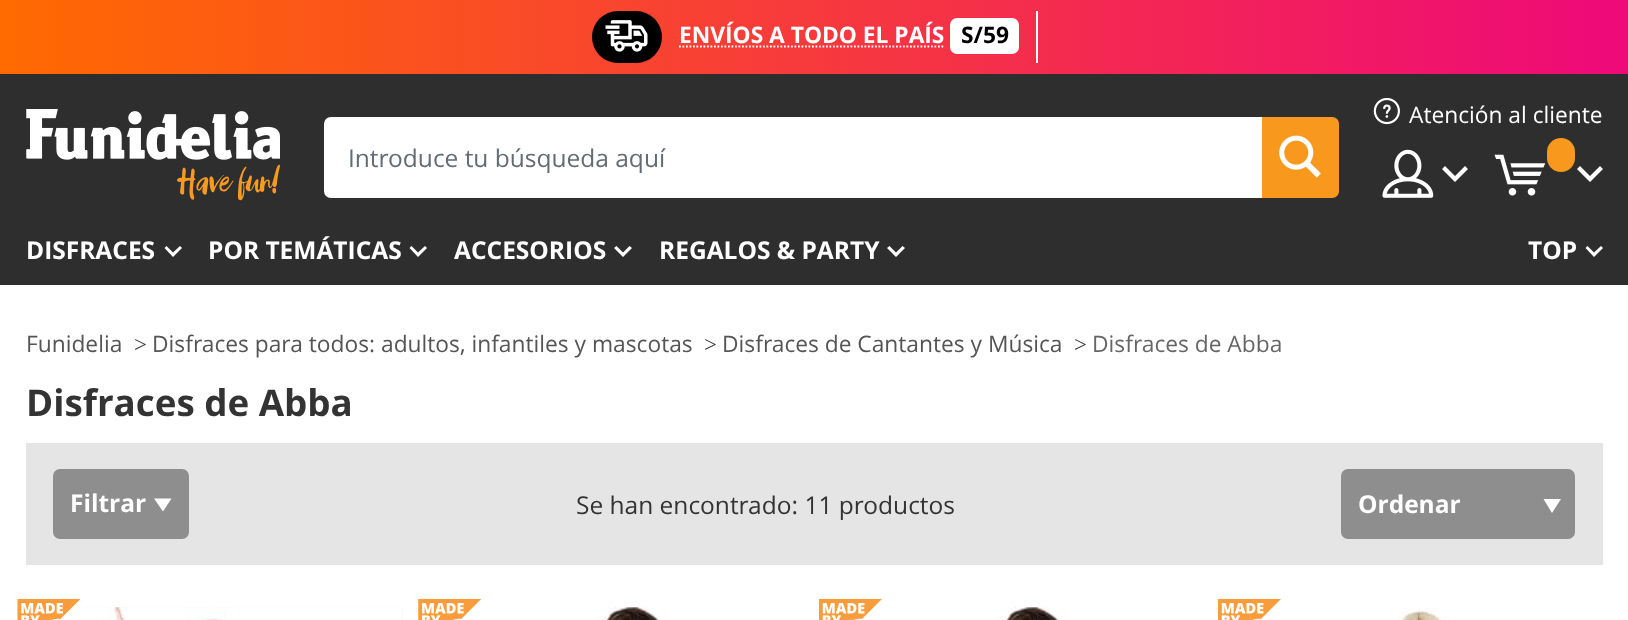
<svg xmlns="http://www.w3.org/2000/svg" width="1628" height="620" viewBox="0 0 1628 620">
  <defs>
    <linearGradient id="g1" gradientUnits="userSpaceOnUse" x1="0" y1="37" x2="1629" y2="37"><stop offset="0" stop-color="rgb(255,106,0)"/><stop offset="1" stop-color="rgb(238,9,121)"/></linearGradient>
  </defs>
  <rect width="100%" height="100%" fill="rgb(255,255,255)"/>
  <rect x="0" y="74" width="1628" height="211" fill="rgb(46,46,46)"/>
  <rect x="0" y="0" width="1628" height="74" fill="url(#g1)"/>
  <rect x="1036" y="11" width="2" height="52" fill="rgb(255,255,255)"/>
  <rect x="592" y="11" width="70" height="52" rx="26" fill="rgb(0,0,0)"/>
  <image x="605" y="20" width="43" height="32" href="pic1.png"/>
  <path d="M679 46.5H945" fill="none" stroke="rgb(255,255,255)" stroke-width="1.8" stroke-dasharray="1.75 1.75"/>
  <text x="679" y="43" font-family="Open Sans" font-size="22.75" font-weight="bold" fill="rgb(255,255,255)">ENVÍOS A TODO EL PAÍS</text>
  <rect x="950" y="18" width="69" height="36" rx="7" fill="rgb(255,255,255)"/>
  <text x="961" y="43" font-family="Open Sans" font-size="22.75" font-weight="bold" fill="rgb(0,0,0)">S/59</text>
  <image x="26" y="109" width="254" height="92" href="pic2.png"/>
  <path d="M331 119H1260V196H331C328 196 326 194 326 191V124C326 121 328 119 331 119Z" fill="rgb(255,255,255)" stroke="rgb(255,255,255)" stroke-width="4"/>
  <text x="348" y="167" font-family="Open Sans" font-size="24.5" fill="rgb(99,108,114)">Introduce tu búsqueda aquí</text>
  <path d="M1262 117H1332C1336 117 1339 120 1339 124V191C1339 195 1336 198 1332 198H1262Z" fill="rgb(248,152,29)"/>
  <image x="1279" y="135" width="42" height="43" href="pic3.png"/>
  <image x="1373" y="97" width="27" height="28" href="pic4.png"/>
  <text x="1409" y="123" font-family="Open Sans" font-size="22.75" fill="rgb(255,255,255)">Atención al cliente</text>
  <image x="1382" y="149" width="52" height="49" href="pic5.png"/>
  <path d="M1442 169L1445 166L1455 176L1465 166L1468 169L1455 182Z" fill="rgb(255,255,255)"/>
  <image x="1494" y="154" width="52" height="42" href="pic6.png"/>
  <rect x="1547" y="138" width="28" height="34" rx="14" fill="rgb(248,152,29)"/>
  <path d="M1577 169L1580 166L1590 176L1600 166L1603 169L1590 182Z" fill="rgb(255,255,255)"/>
  <text x="26" y="259" font-family="Open Sans" font-size="24.5" font-weight="bold" fill="rgb(255,255,255)">DISFRACES</text>
  <path d="M164.5 248L166.5 246L173 252.5L180 246L182 248L173 257Z" fill="rgb(255,255,255)"/>
  <text x="208" y="259" font-family="Open Sans" font-size="24.5" font-weight="bold" fill="rgb(255,255,255)">POR TEMÁTICAS</text>
  <path d="M409.5 248L411.5 246L418 252.5L425 246L427 248L418 257Z" fill="rgb(255,255,255)"/>
  <text x="454" y="259" font-family="Open Sans" font-size="24.5" font-weight="bold" fill="rgb(255,255,255)">ACCESORIOS</text>
  <path d="M614 248L616.5 246L623 252.5L629.5 246L632 248L623 257Z" fill="rgb(255,255,255)"/>
  <text x="659" y="259" font-family="Open Sans" font-size="24.5" font-weight="bold" fill="rgb(255,255,255)">REGALOS &amp; PARTY</text>
  <path d="M887 248L889.5 246L896 252.5L902.5 246L905 248L896 257Z" fill="rgb(255,255,255)"/>
  <text x="1528" y="259" font-family="Open Sans" font-size="24.5" font-weight="bold" fill="rgb(255,255,255)">TOP</text>
  <path d="M1585.5 248L1587.5 246L1594 252.5L1601 246L1603 248L1594 257Z" fill="rgb(255,255,255)"/>
  <text x="26" y="352" font-family="Open Sans" font-size="22.75" fill="rgb(85,85,85)">Funidelia</text>
  <text x="134" y="352" font-family="Liberation Serif" font-size="22.75" fill="rgb(51,51,51)">&gt;</text>
  <text x="152" y="352" font-family="Open Sans" font-size="22.75" fill="rgb(85,85,85)">Disfraces para todos: adultos, infantiles y mascotas</text>
  <text x="704" y="352" font-family="Liberation Serif" font-size="22.75" fill="rgb(51,51,51)">&gt;</text>
  <text x="722" y="352" font-family="Open Sans" font-size="22.75" fill="rgb(85,85,85)">Disfraces de Cantantes y Música</text>
  <text x="1074" y="352" font-family="Liberation Serif" font-size="22.75" fill="rgb(51,51,51)">&gt;</text>
  <text x="1092" y="352" font-family="Open Sans" font-size="22.75" fill="rgb(102,102,102)">Disfraces de Abba</text>
  <text x="26" y="416" font-family="Open Sans" font-size="36.75" font-weight="bold" fill="rgb(51,51,51)">Disfraces de Abba</text>
  <rect x="26" y="443" width="1577" height="122" fill="rgb(229,229,229)"/>
  <rect x="53" y="469" width="136" height="70" rx="7" fill="rgb(142,142,142)"/>
  <text x="70" y="512" font-family="Open Sans" font-size="24.5" font-weight="bold" fill="rgb(255,255,255)">Filtrar</text>
  <path d="M163 511.5L154 498.5H171.5Z" fill="rgb(255,255,255)"/>
  <text x="576" y="514" font-family="Open Sans" font-size="24.5" fill="rgb(51,51,51)">Se han encontrado: 11 productos</text>
  <rect x="1343" y="471" width="230" height="66" rx="5" fill="rgb(142,142,142)" stroke="rgb(142,142,142)" stroke-width="4"/>
  <text x="1358" y="513" font-family="Open Sans" font-size="24.5" font-weight="bold" fill="rgb(255,255,255)">Ordenar</text>
  <path d="M1543.5 499H1561L1552 513Z" fill="rgb(255,255,255)"/>
  <rect x="26" y="607" width="377" height="13" fill="rgb(246,246,246)"/>
  <image x="26" y="607" width="377" height="13" href="pic8.png"/>
  <image x="17" y="598" width="64" height="22" href="pic7.png"/>
  <image x="427" y="607" width="376" height="13" href="pic10.png"/>
  <image x="418" y="598" width="63" height="22" href="pic9.png"/>
  <image x="828" y="607" width="374" height="13" href="pic12.png"/>
  <image x="819" y="598" width="63" height="22" href="pic11.png"/>
  <image x="1227" y="607" width="376" height="13" href="pic13.png"/>
  <image x="1218" y="598" width="63" height="22" href="pic11.png"/>
</svg>
